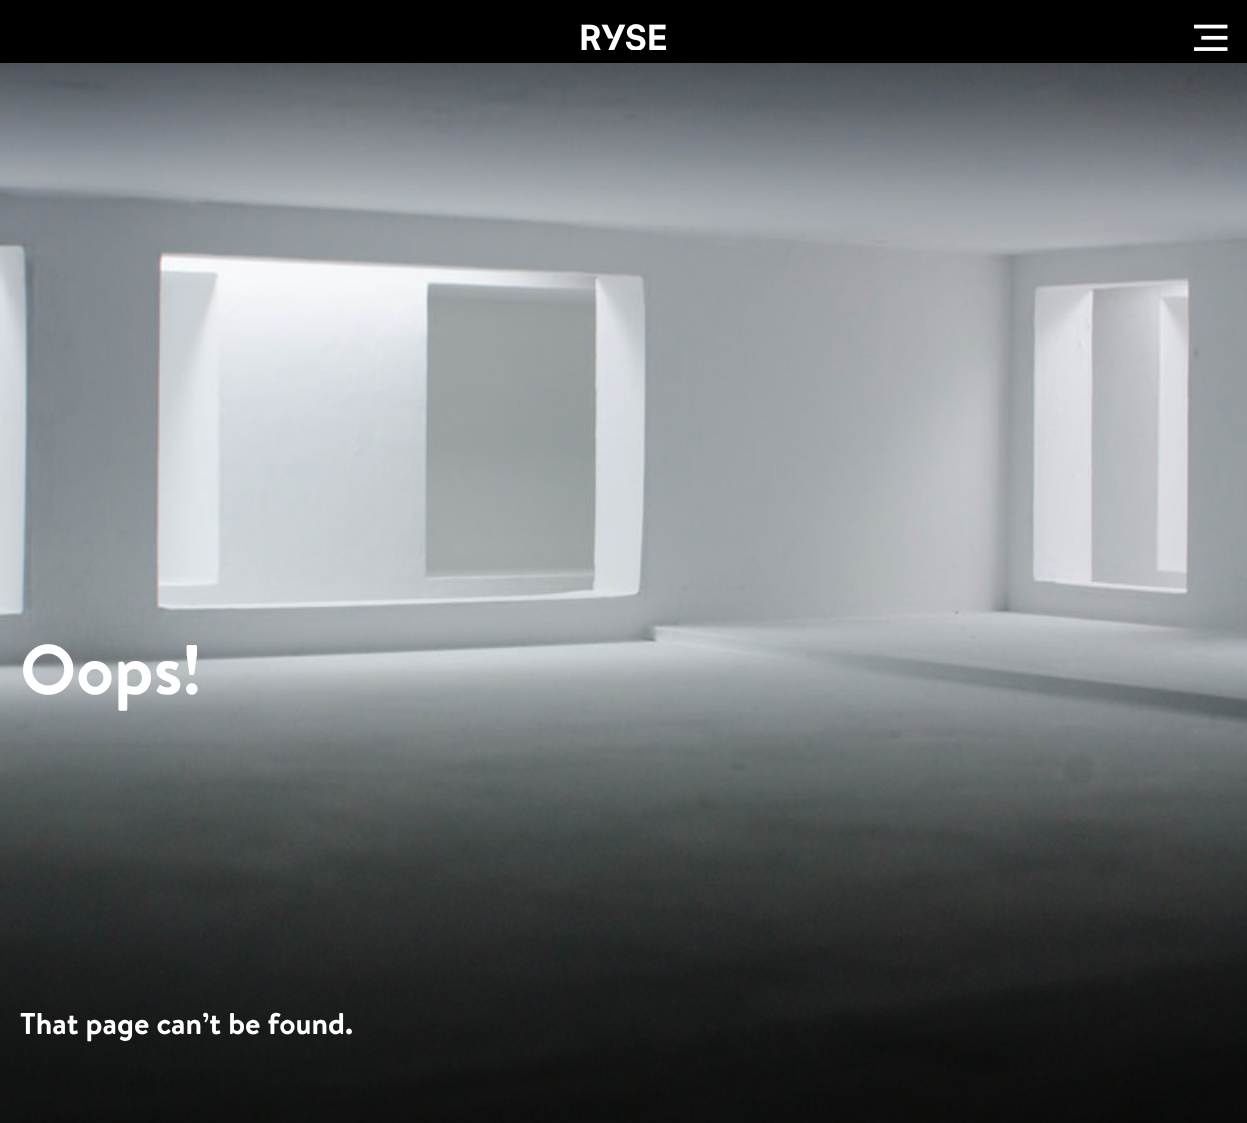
<svg xmlns="http://www.w3.org/2000/svg" width="1247" height="1123" viewBox="0 0 1247 1123">
  <rect width="100%" height="100%" fill="rgb(255,255,255)"/>
  <rect x="0" y="0" width="1247" height="63" fill="rgb(0,0,0)"/>
  <image x="581" y="24" width="85" height="26" href="pic1.png"/>
  <image x="1194" y="24" width="34" height="27" href="pic2.png"/>
  <image x="0" y="63" width="1247" height="1060" href="pic3.png"/>
  <text x="20" y="694" font-family="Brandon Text" font-size="70" font-weight="bold" fill="rgb(255,255,255)">Oops!</text>
  <text x="20" y="1034" font-family="Brandon Text" font-size="30" font-weight="bold" fill="rgb(255,255,255)">That page can’t be found.</text>
</svg>
